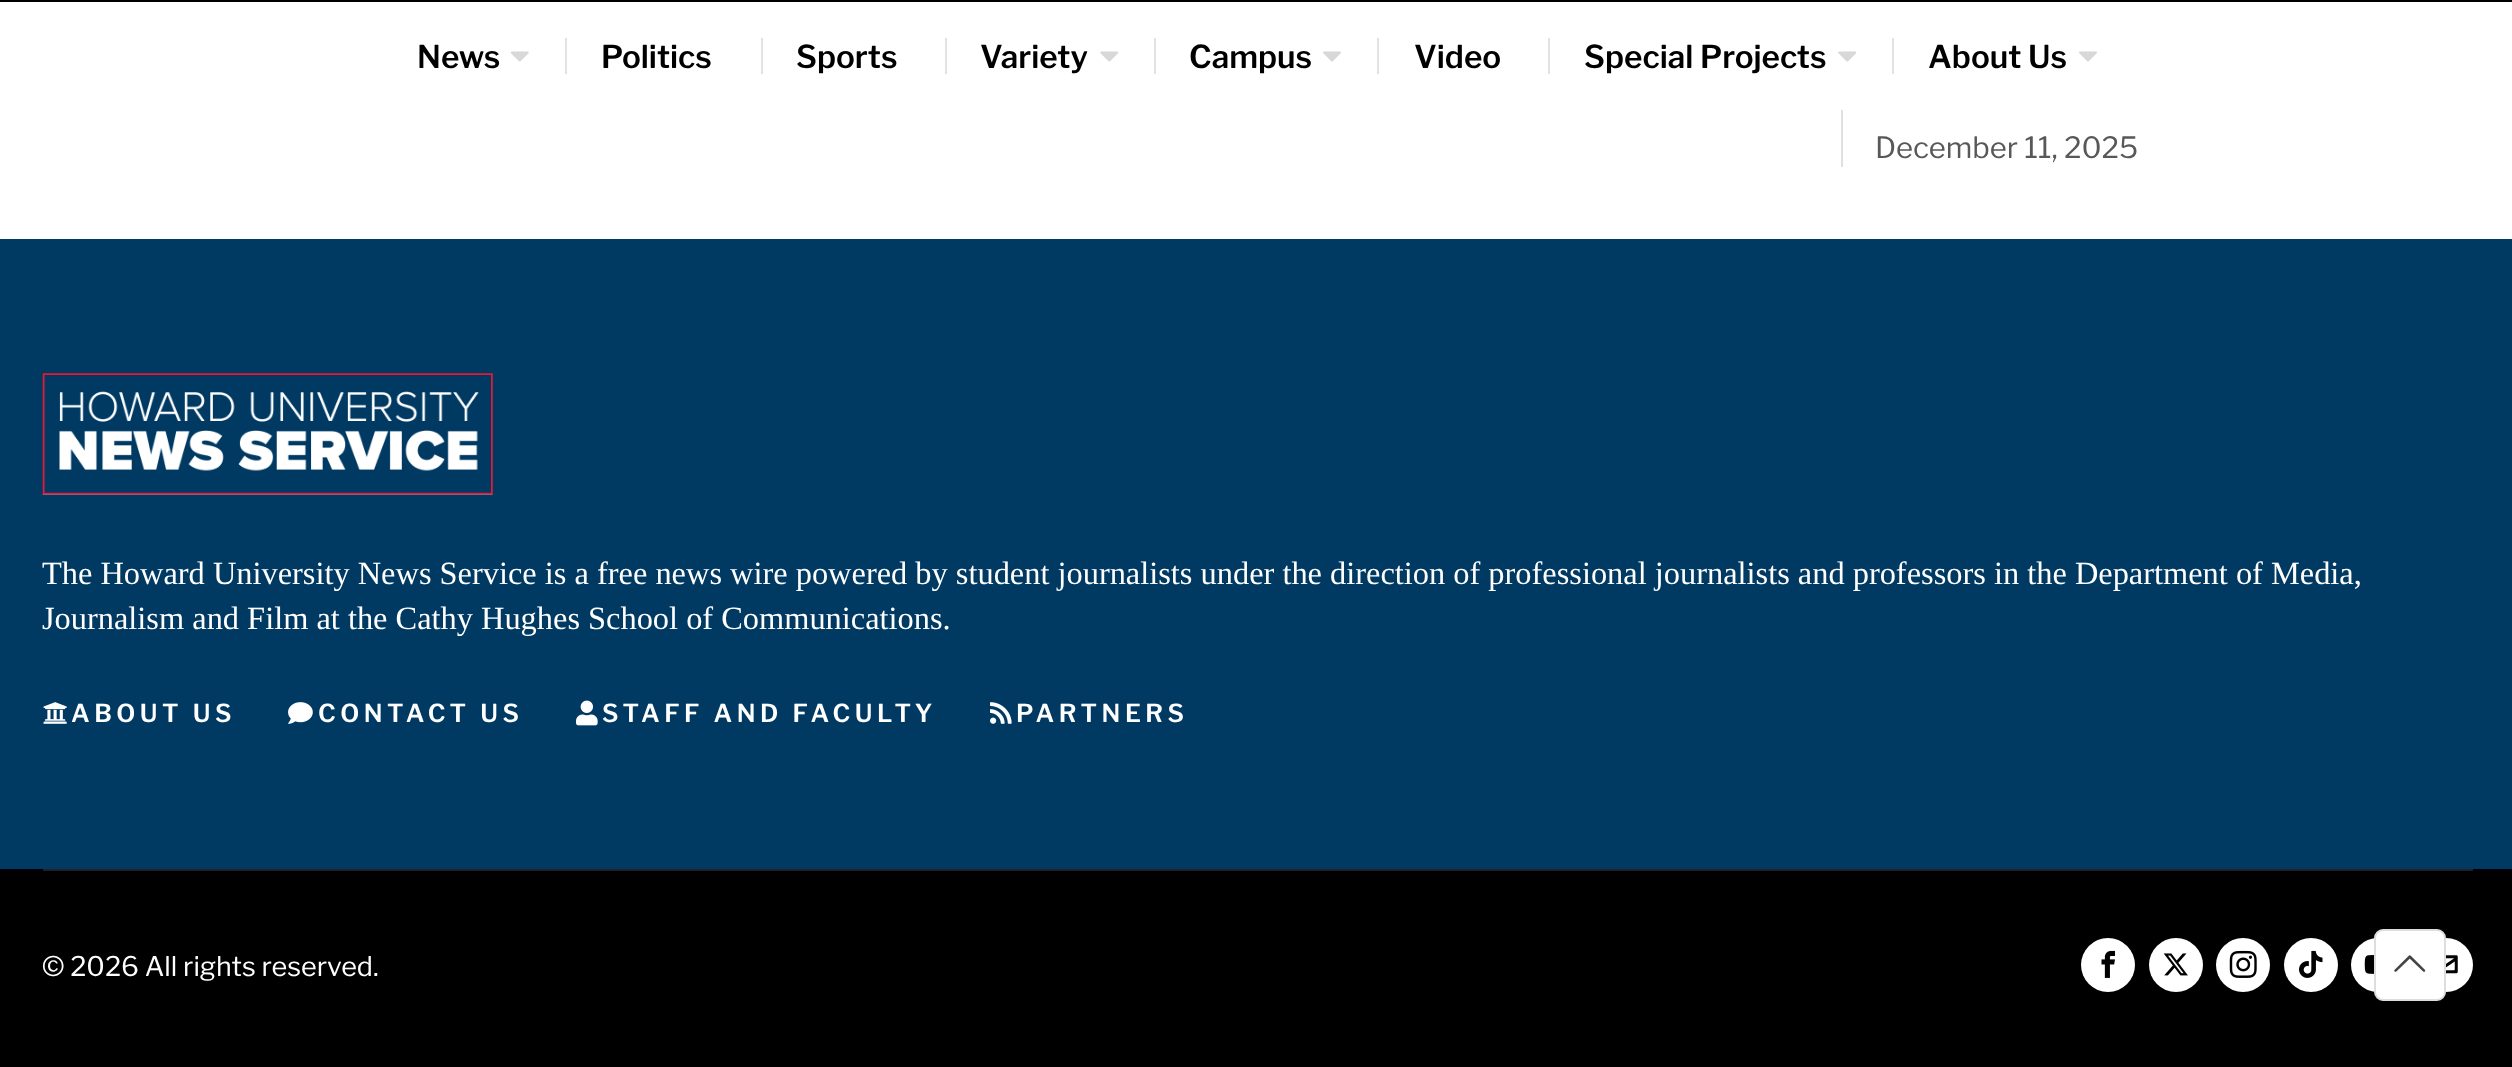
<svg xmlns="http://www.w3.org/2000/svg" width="2512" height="1067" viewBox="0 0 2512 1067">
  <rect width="100%" height="100%" fill="rgb(255,255,255)"/>
  <rect x="0" y="0" width="2512" height="2" fill="rgb(0,0,0)"/>
  <text x="417" y="68" font-family="Libre Franklin" font-size="31.5" font-weight="600" fill="rgb(0,0,0)">News</text>
  <image x="510" y="51" width="19" height="11" href="pic1.png"/>
  <rect x="565" y="38" width="2" height="36" fill="rgb(226,226,226)"/>
  <text x="601" y="68" font-family="Libre Franklin" font-size="31.5" font-weight="600" fill="rgb(0,0,0)">Politics</text>
  <rect x="761" y="38" width="2" height="36" fill="rgb(226,226,226)"/>
  <text x="796" y="68" font-family="Libre Franklin" font-size="31.5" font-weight="600" fill="rgb(0,0,0)">Sports</text>
  <rect x="945" y="38" width="2" height="36" fill="rgb(226,226,226)"/>
  <text x="980" y="68" font-family="Libre Franklin" font-size="31.5" font-weight="600" fill="rgb(0,0,0)">Variety</text>
  <image x="1100" y="51" width="19" height="11" href="pic2.png"/>
  <rect x="1154" y="38" width="2" height="36" fill="rgb(226,226,226)"/>
  <text x="1189" y="68" font-family="Libre Franklin" font-size="31.5" font-weight="600" fill="rgb(0,0,0)">Campus</text>
  <image x="1323" y="51" width="18" height="11" href="pic3.png"/>
  <rect x="1377" y="38" width="2" height="36" fill="rgb(226,226,226)"/>
  <text x="1414" y="68" font-family="Libre Franklin" font-size="31.5" font-weight="600" fill="rgb(0,0,0)">Video</text>
  <rect x="1548" y="38" width="2" height="36" fill="rgb(226,226,226)"/>
  <text x="1584" y="68" font-family="Libre Franklin" font-size="31.5" font-weight="600" fill="rgb(0,0,0)">Special Projects</text>
  <image x="1838" y="51" width="19" height="11" href="pic2.png"/>
  <rect x="1892" y="38" width="2" height="36" fill="rgb(226,226,226)"/>
  <text x="1928" y="68" font-family="Libre Franklin" font-size="31.5" font-weight="600" fill="rgb(0,0,0)">About Us</text>
  <image x="2079" y="51" width="18" height="11" href="pic3.png"/>
  <rect x="1841" y="110" width="2" height="57" fill="rgb(224,224,224)"/>
  <text x="1875" y="158" font-family="Libre Franklin" font-size="29.25" fill="rgb(88,88,88)">December 11, 2025</text>
  <rect x="0" y="239" width="2512" height="630" fill="rgb(0,58,99)"/>
  <image x="42" y="373" width="451" height="122" href="pic4.png"/>
  <g font-family="Liberation Serif" font-size="32.4" fill="rgb(255,255,255)">
    <text>
      <tspan x="42" y="584">The Howard University News Service is a free news wire powered by student journalists under the direction of professional journalists and professors in the Department of Media,</tspan>
      <tspan x="42" y="629">Journalism and Film at the Cathy Hughes School of Communications.</tspan>
    </text>
  </g>
  <image x="43" y="702" width="24" height="22" href="pic5.png"/>
  <text x="71" y="722" font-family="Libre Franklin" font-size="24.75" font-weight="600" letter-spacing="4.5" fill="rgb(255,255,255)">ABOUT US</text>
  <image x="288" y="702" width="25" height="22" href="pic6.png"/>
  <text x="318" y="722" font-family="Libre Franklin" font-size="24.75" font-weight="600" letter-spacing="4.5" fill="rgb(255,255,255)">CONTACT US</text>
  <image x="576" y="700" width="22" height="26" href="pic7.png"/>
  <text x="602" y="722" font-family="Libre Franklin" font-size="24.75" font-weight="600" letter-spacing="4.5" fill="rgb(255,255,255)">STAFF AND FACULTY</text>
  <image x="990" y="702" width="22" height="22" href="pic8.png"/>
  <text x="1016" y="722" font-family="Libre Franklin" font-size="24.75" font-weight="600" letter-spacing="4.5" fill="rgb(255,255,255)">PARTNERS</text>
  <rect x="0" y="869" width="2512" height="198" fill="rgb(0,0,0)"/>
  <rect x="43" y="869" width="2430" height="2" fill="rgb(33,33,33)"/>
  <text x="42" y="976" font-family="Libre Franklin" font-size="27" fill="rgb(255,255,255)">© 2026 All rights reserved.</text>
  <circle cx="2108" cy="965" r="27" fill="rgb(255,255,255)"/>
  <image x="2101" y="950" width="14" height="28" href="pic9.png"/>
  <circle cx="2176" cy="965" r="27" fill="rgb(255,255,255)"/>
  <image x="2163" y="953" width="25" height="23" href="pic10.png"/>
  <circle cx="2243" cy="965" r="27" fill="rgb(255,255,255)"/>
  <image x="2229" y="950" width="28" height="28" href="pic11.png"/>
  <circle cx="2311" cy="965" r="27" fill="rgb(255,255,255)"/>
  <image x="2299" y="950" width="24" height="28" href="pic12.png"/>
  <circle cx="2378" cy="965" r="27" fill="rgb(255,255,255)"/>
  <image x="2364" y="955" width="10" height="19" href="pic13.png"/>
  <circle cx="2446" cy="965" r="27" fill="rgb(255,255,255)"/>
  <image x="2446" y="955" width="12" height="19" href="pic14.png"/>
  <rect x="2375" y="930" width="70" height="70" rx="8" fill="rgb(255,255,255)" stroke="rgb(221,221,221)" stroke-width="2"/>
  <image x="2394" y="955" width="32" height="17" href="pic15.png"/>
</svg>
